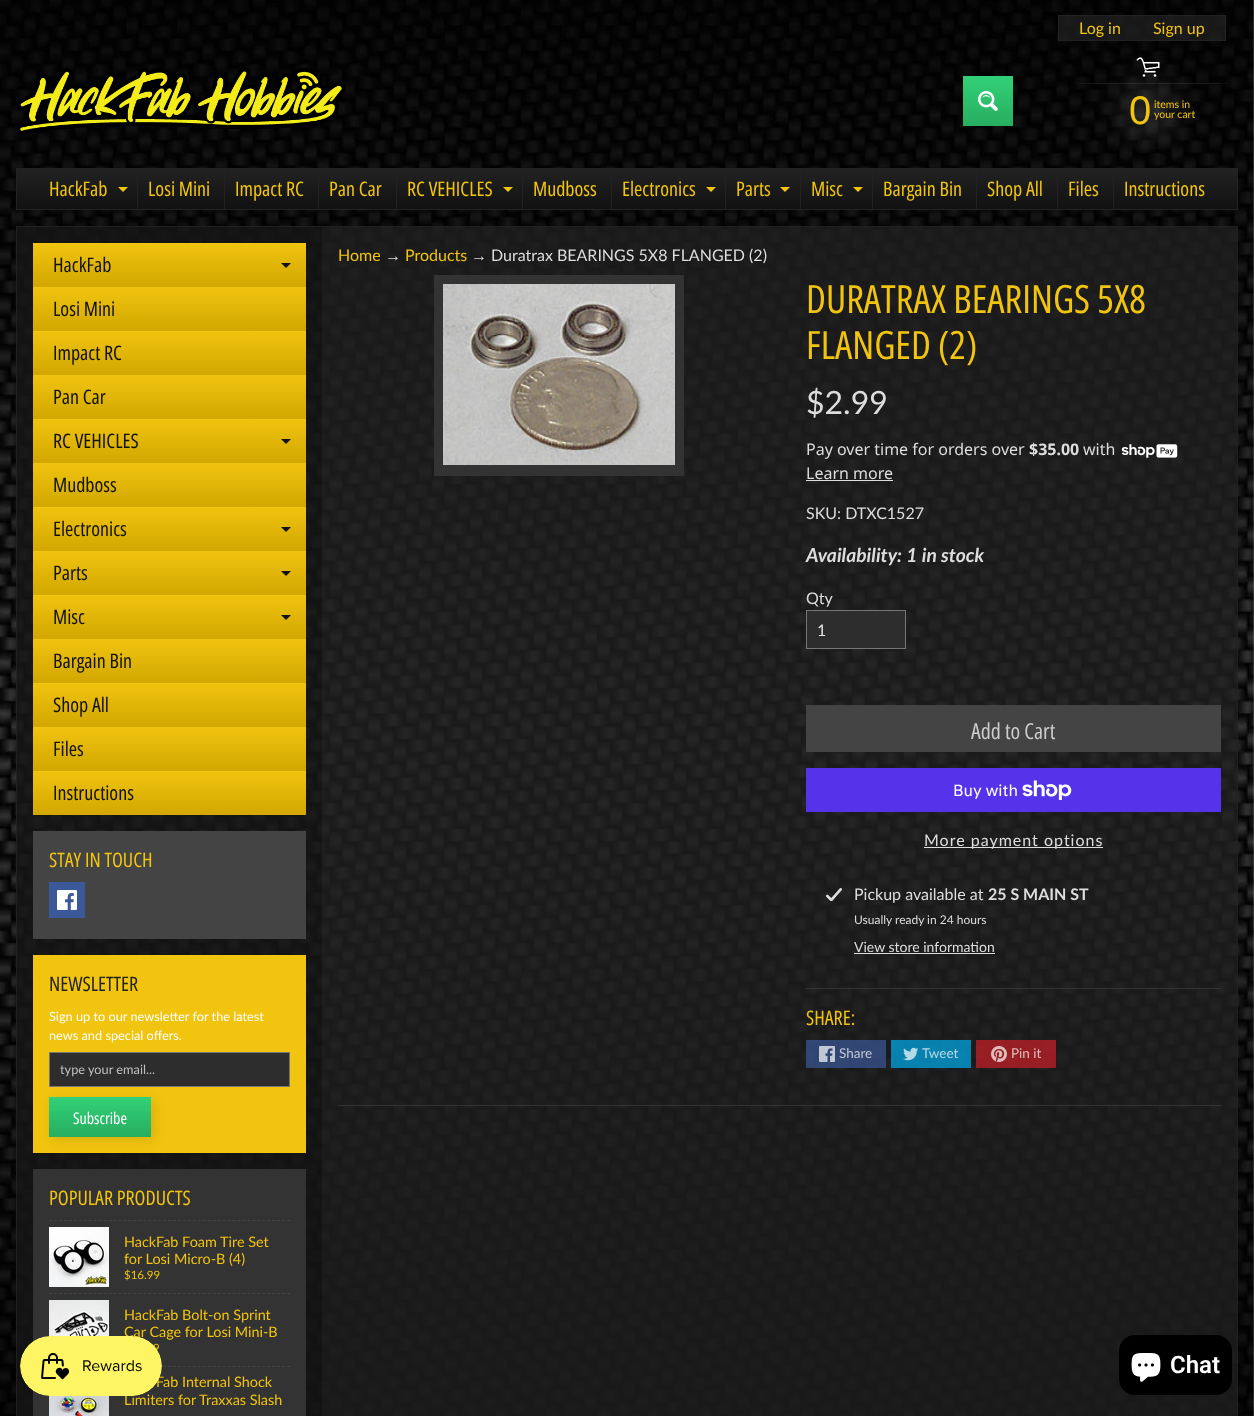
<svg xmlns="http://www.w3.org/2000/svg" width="1254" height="1416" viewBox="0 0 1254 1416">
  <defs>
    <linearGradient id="g1" gradientUnits="userSpaceOnUse" x1="988" y1="76" x2="988" y2="126"><stop offset="0" stop-color="rgb(50,209,119)"/><stop offset="1" stop-color="rgb(39,174,96)"/></linearGradient>
    <linearGradient id="g2" gradientUnits="userSpaceOnUse" x1="627" y1="169" x2="627" y2="209"><stop offset="0" stop-color="rgb(34,34,34)"/><stop offset="1" stop-color="rgb(17,17,17)"/></linearGradient>
    <linearGradient id="g3" gradientUnits="userSpaceOnUse" x1="170" y1="243" x2="170" y2="287"><stop offset="0" stop-color="rgb(241,196,15)"/><stop offset="1" stop-color="rgb(209,167,1)"/></linearGradient>
    <linearGradient id="g4" gradientUnits="userSpaceOnUse" x1="170" y1="287" x2="170" y2="331"><stop offset="0" stop-color="rgb(241,196,15)"/><stop offset="1" stop-color="rgb(209,167,1)"/></linearGradient>
    <linearGradient id="g5" gradientUnits="userSpaceOnUse" x1="170" y1="331" x2="170" y2="375"><stop offset="0" stop-color="rgb(241,196,15)"/><stop offset="1" stop-color="rgb(209,167,1)"/></linearGradient>
    <linearGradient id="g6" gradientUnits="userSpaceOnUse" x1="170" y1="375" x2="170" y2="419"><stop offset="0" stop-color="rgb(241,196,15)"/><stop offset="1" stop-color="rgb(209,167,1)"/></linearGradient>
    <linearGradient id="g7" gradientUnits="userSpaceOnUse" x1="170" y1="419" x2="170" y2="463"><stop offset="0" stop-color="rgb(241,196,15)"/><stop offset="1" stop-color="rgb(209,167,1)"/></linearGradient>
    <linearGradient id="g8" gradientUnits="userSpaceOnUse" x1="170" y1="463" x2="170" y2="507"><stop offset="0" stop-color="rgb(241,196,15)"/><stop offset="1" stop-color="rgb(209,167,1)"/></linearGradient>
    <linearGradient id="g9" gradientUnits="userSpaceOnUse" x1="170" y1="507" x2="170" y2="551"><stop offset="0" stop-color="rgb(241,196,15)"/><stop offset="1" stop-color="rgb(209,167,1)"/></linearGradient>
    <linearGradient id="g10" gradientUnits="userSpaceOnUse" x1="170" y1="551" x2="170" y2="595"><stop offset="0" stop-color="rgb(241,196,15)"/><stop offset="1" stop-color="rgb(209,167,1)"/></linearGradient>
    <linearGradient id="g11" gradientUnits="userSpaceOnUse" x1="170" y1="595" x2="170" y2="639"><stop offset="0" stop-color="rgb(241,196,15)"/><stop offset="1" stop-color="rgb(209,167,1)"/></linearGradient>
    <linearGradient id="g12" gradientUnits="userSpaceOnUse" x1="170" y1="639" x2="170" y2="683"><stop offset="0" stop-color="rgb(241,196,15)"/><stop offset="1" stop-color="rgb(209,167,1)"/></linearGradient>
    <linearGradient id="g13" gradientUnits="userSpaceOnUse" x1="170" y1="683" x2="170" y2="727"><stop offset="0" stop-color="rgb(241,196,15)"/><stop offset="1" stop-color="rgb(209,167,1)"/></linearGradient>
    <linearGradient id="g14" gradientUnits="userSpaceOnUse" x1="170" y1="727" x2="170" y2="771"><stop offset="0" stop-color="rgb(241,196,15)"/><stop offset="1" stop-color="rgb(209,167,1)"/></linearGradient>
    <linearGradient id="g15" gradientUnits="userSpaceOnUse" x1="170" y1="771" x2="170" y2="815"><stop offset="0" stop-color="rgb(241,196,15)"/><stop offset="1" stop-color="rgb(209,167,1)"/></linearGradient>
    <linearGradient id="g16" gradientUnits="userSpaceOnUse" x1="100" y1="1097" x2="100" y2="1137"><stop offset="0" stop-color="rgb(50,209,119)"/><stop offset="1" stop-color="rgb(39,174,96)"/></linearGradient>
  </defs>
  <rect width="100%" height="100%" fill="rgb(255,255,255)"/>
  <image x="0" y="0" width="1254" height="1416" href="pic1.png"/>
  <image x="16" y="68" width="330" height="66" href="pic2.png"/>
  <rect x="1058.5" y="15.5" width="167" height="25" fill="rgba(34,34,34,0.7)" stroke="rgb(34,34,34)"/>
  <g font-family="Lato" font-size="16" fill="rgb(241,196,15)">
    <text x="1079" y="34">Log in</text>
    <text x="1153" y="34">Sign up</text>
  </g>
  <rect x="963" y="76" width="50" height="50" fill="url(#g1)"/>
  <image x="978" y="91" width="20" height="20" href="pic3.png"/>
  <image x="1075" y="55" width="155" height="94" href="pic4.png"/>
  <text x="1129" y="124" font-family="Liberation Sans" font-size="40" fill="rgb(241,196,15)">0</text>
  <g font-family="Lato" font-size="10.5" fill="rgb(241,196,15)">
    <text>
      <tspan x="1154" y="108">items in</tspan>
      <tspan x="1154" y="118">your cart</tspan>
    </text>
  </g>
  <rect x="17" y="169" width="1220" height="40" fill="url(#g2)"/>
  <rect x="16.5" y="168.5" width="1221" height="41" fill="none" stroke="rgb(34,34,34)"/>
  <text x="49" y="196" font-family="Open Sans Condensed" font-size="20" fill="rgb(241,196,15)">HackFab</text>
  <path d="M118 187H128L123 192Z" fill="rgb(241,196,15)"/>
  <rect x="137" y="169" width="1" height="40" fill="rgb(34,34,34)"/>
  <text x="148" y="196" font-family="Open Sans Condensed" font-size="20" fill="rgb(241,196,15)">Losi Mini</text>
  <rect x="224" y="169" width="1" height="40" fill="rgb(34,34,34)"/>
  <text x="235" y="196" font-family="Open Sans Condensed" font-size="20" fill="rgb(241,196,15)">Impact RC</text>
  <rect x="318" y="169" width="1" height="40" fill="rgb(34,34,34)"/>
  <text x="329" y="196" font-family="Open Sans Condensed" font-size="20" fill="rgb(241,196,15)">Pan Car</text>
  <rect x="396" y="169" width="1" height="40" fill="rgb(34,34,34)"/>
  <text x="407" y="196" font-family="Open Sans Condensed" font-size="20" fill="rgb(241,196,15)">RC VEHICLES</text>
  <path d="M503 187H513L508 192Z" fill="rgb(241,196,15)"/>
  <rect x="522" y="169" width="1" height="40" fill="rgb(34,34,34)"/>
  <text x="533" y="196" font-family="Open Sans Condensed" font-size="20" fill="rgb(241,196,15)">Mudboss</text>
  <rect x="611" y="169" width="1" height="40" fill="rgb(34,34,34)"/>
  <text x="622" y="196" font-family="Open Sans Condensed" font-size="20" fill="rgb(241,196,15)">Electronics</text>
  <path d="M706 187H716L711 192Z" fill="rgb(241,196,15)"/>
  <rect x="725" y="169" width="1" height="40" fill="rgb(34,34,34)"/>
  <text x="736" y="196" font-family="Open Sans Condensed" font-size="20" fill="rgb(241,196,15)">Parts</text>
  <path d="M780 187H790L785 192Z" fill="rgb(241,196,15)"/>
  <rect x="800" y="169" width="1" height="40" fill="rgb(34,34,34)"/>
  <text x="811" y="196" font-family="Open Sans Condensed" font-size="20" fill="rgb(241,196,15)">Misc</text>
  <path d="M853 187H863L858 192Z" fill="rgb(241,196,15)"/>
  <rect x="872" y="169" width="1" height="40" fill="rgb(34,34,34)"/>
  <text x="883" y="196" font-family="Open Sans Condensed" font-size="20" fill="rgb(241,196,15)">Bargain Bin</text>
  <rect x="976" y="169" width="1" height="40" fill="rgb(34,34,34)"/>
  <text x="987" y="196" font-family="Open Sans Condensed" font-size="20" fill="rgb(241,196,15)">Shop All</text>
  <rect x="1057" y="169" width="1" height="40" fill="rgb(34,34,34)"/>
  <text x="1068" y="196" font-family="Open Sans Condensed" font-size="20" fill="rgb(241,196,15)">Files</text>
  <rect x="1113" y="169" width="1" height="40" fill="rgb(34,34,34)"/>
  <text x="1124" y="196" font-family="Open Sans Condensed" font-size="20" fill="rgb(241,196,15)">Instructions</text>
  <rect x="16" y="226" width="1222" height="1190" fill="rgba(34,34,34,0.75)"/>
  <rect x="16.5" y="226.5" width="1221" height="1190" fill="none" stroke="rgba(34,34,34,0.7)"/>
  <rect x="17" y="227" width="305" height="1189" fill="rgba(0,0,0,0.25)"/>
  <rect x="33" y="243" width="273" height="44" fill="url(#g3)"/>
  <text x="53" y="272" font-family="Open Sans Condensed" font-size="20" fill="rgb(17,17,17)">HackFab</text>
  <path d="M281 263H291L286 268Z" fill="rgb(17,17,17)"/>
  <rect x="33" y="287" width="273" height="44" fill="url(#g4)"/>
  <text x="53" y="316" font-family="Open Sans Condensed" font-size="20" fill="rgb(17,17,17)">Losi Mini</text>
  <rect x="33" y="331" width="273" height="44" fill="url(#g5)"/>
  <text x="53" y="360" font-family="Open Sans Condensed" font-size="20" fill="rgb(17,17,17)">Impact RC</text>
  <rect x="33" y="375" width="273" height="44" fill="url(#g6)"/>
  <text x="53" y="404" font-family="Open Sans Condensed" font-size="20" fill="rgb(17,17,17)">Pan Car</text>
  <rect x="33" y="419" width="273" height="44" fill="url(#g7)"/>
  <text x="53" y="448" font-family="Open Sans Condensed" font-size="20" fill="rgb(17,17,17)">RC VEHICLES</text>
  <path d="M281 439H291L286 444Z" fill="rgb(17,17,17)"/>
  <rect x="33" y="463" width="273" height="44" fill="url(#g8)"/>
  <text x="53" y="492" font-family="Open Sans Condensed" font-size="20" fill="rgb(17,17,17)">Mudboss</text>
  <rect x="33" y="507" width="273" height="44" fill="url(#g9)"/>
  <text x="53" y="536" font-family="Open Sans Condensed" font-size="20" fill="rgb(17,17,17)">Electronics</text>
  <path d="M281 527H291L286 532Z" fill="rgb(17,17,17)"/>
  <rect x="33" y="551" width="273" height="44" fill="url(#g10)"/>
  <text x="53" y="580" font-family="Open Sans Condensed" font-size="20" fill="rgb(17,17,17)">Parts</text>
  <path d="M281 571H291L286 576Z" fill="rgb(17,17,17)"/>
  <rect x="33" y="595" width="273" height="44" fill="url(#g11)"/>
  <text x="53" y="624" font-family="Open Sans Condensed" font-size="20" fill="rgb(17,17,17)">Misc</text>
  <path d="M281 615H291L286 620Z" fill="rgb(17,17,17)"/>
  <rect x="33" y="639" width="273" height="44" fill="url(#g12)"/>
  <text x="53" y="668" font-family="Open Sans Condensed" font-size="20" fill="rgb(17,17,17)">Bargain Bin</text>
  <rect x="33" y="683" width="273" height="44" fill="url(#g13)"/>
  <text x="53" y="712" font-family="Open Sans Condensed" font-size="20" fill="rgb(17,17,17)">Shop All</text>
  <rect x="33" y="727" width="273" height="44" fill="url(#g14)"/>
  <text x="53" y="756" font-family="Open Sans Condensed" font-size="20" fill="rgb(17,17,17)">Files</text>
  <rect x="33" y="771" width="273" height="44" fill="url(#g15)"/>
  <text x="53" y="800" font-family="Open Sans Condensed" font-size="20" fill="rgb(17,17,17)">Instructions</text>
  <rect x="33" y="831" width="273" height="108" fill="rgb(68,68,68)"/>
  <text x="49" y="867" font-family="Open Sans Condensed" font-size="20" fill="rgb(241,196,15)">STAY IN TOUCH</text>
  <rect x="49" y="882" width="36" height="36" fill="rgb(59,89,152)"/>
  <image x="57" y="890" width="20" height="20" href="pic5.png"/>
  <rect x="33" y="955" width="273" height="198" fill="rgb(241,196,15)"/>
  <text x="49" y="991" font-family="Open Sans Condensed" font-size="20" fill="rgb(34,34,34)">NEWSLETTER</text>
  <g font-family="Lato" font-size="12.75" fill="rgb(255,255,255)">
    <text>
      <tspan x="49" y="1021">Sign up to our newsletter for the latest</tspan>
      <tspan x="49" y="1040">news and special offers.</tspan>
    </text>
  </g>
  <rect x="49.5" y="1052.5" width="240" height="34" fill="rgb(45,45,45)" stroke="rgb(118,118,118)"/>
  <text x="60" y="1074" font-family="Lato" font-size="12.75" fill="rgb(192,191,191)">type your email...</text>
  <rect x="52" y="1100" width="102" height="40" fill="rgba(0,0,0,0.1)" filter="blur(6px)"/>
  <rect x="49" y="1097" width="102" height="40" fill="url(#g16)"/>
  <text x="73" y="1124" font-family="Open Sans Condensed" font-size="16" fill="rgb(255,255,255)">Subscribe</text>
  <rect x="33" y="1169" width="273" height="247" fill="rgb(51,51,51)"/>
  <text x="49" y="1205" font-family="Open Sans Condensed" font-size="20" fill="rgb(241,196,15)">POPULAR PRODUCTS</text>
  <path d="M49 1220.5H290" fill="none" stroke="rgb(68,68,68)" stroke-dasharray="3 1.96"/>
  <image x="49" y="1227" width="60" height="60" href="pic6.png"/>
  <g font-family="Lato" font-size="14.4" fill="rgb(241,196,15)">
    <text>
      <tspan x="124" y="1247">HackFab Foam Tire Set</tspan>
      <tspan x="124" y="1264">for Losi Micro-B (4)</tspan>
    </text>
  </g>
  <text x="124" y="1279" font-family="Lato" font-size="11.5" fill="rgb(241,196,15)">$16.99</text>
  <path d="M49 1293.5H290" fill="none" stroke="rgb(68,68,68)" stroke-dasharray="3 1.96"/>
  <image x="49" y="1300" width="60" height="37" href="pic7.png"/>
  <g font-family="Lato" font-size="14.4" fill="rgb(241,196,15)">
    <text>
      <tspan x="124" y="1320">HackFab Bolt-on Sprint</tspan>
      <tspan x="124" y="1337">Car Cage for Losi Mini-B</tspan>
    </text>
  </g>
  <text x="153" y="1352" font-family="Lato" font-size="11.5" fill="rgb(241,196,15)">9</text>
  <path d="M49 1366.5H290" fill="none" stroke="rgb(68,68,68)" stroke-dasharray="3 1.96"/>
  <image x="49" y="1395" width="60" height="21" href="pic8.png"/>
  <g font-family="Lato" font-size="14.4" fill="rgb(241,196,15)">
    <text x="156" y="1387">Fab Internal Shock</text>
    <text x="124" y="1405">Limiters for Traxxas Slash</text>
  </g>
  <text x="338" y="261" font-family="Lato" font-size="16" fill="rgb(241,196,15)">Home</text>
  <text x="385" y="261" font-family="Liberation Sans" font-size="16" fill="rgb(221,221,221)">→</text>
  <text x="405" y="261" font-family="Lato" font-size="16" fill="rgb(241,196,15)">Products</text>
  <text x="471" y="261" font-family="Liberation Sans" font-size="16" fill="rgb(221,221,221)">→</text>
  <text x="491" y="261" font-family="Lato" font-size="16" fill="rgb(221,221,221)">Duratrax BEARINGS 5X8 FLANGED (2)</text>
  <rect x="434" y="275" width="250" height="201" fill="rgb(51,51,51)"/>
  <image x="443" y="284" width="232" height="181" href="pic9.png"/>
  <g font-family="Open Sans Condensed" font-size="39" fill="rgb(241,196,15)">
    <text>
      <tspan x="806" y="313">DURATRAX BEARINGS 5X8</tspan>
      <tspan x="806" y="359">FLANGED (2)</tspan>
    </text>
  </g>
  <text x="806" y="414" font-family="Lato" font-size="32" fill="rgb(221,221,221)">$2.99</text>
  <text x="806" y="455" font-family="Noto Sans" font-size="16" fill="rgb(221,221,221)">Pay over time for orders over</text>
  <text x="1029" y="455" font-family="Noto Sans" font-size="16" font-weight="bold" fill="rgb(221,221,221)">$35.00</text>
  <text x="1083" y="455" font-family="Noto Sans" font-size="16" fill="rgb(221,221,221)">with</text>
  <image x="1121" y="444" width="57" height="14" href="pic10.png"/>
  <text x="806" y="479" font-family="Noto Sans" font-size="16" fill="rgb(221,221,221)">Learn more</text>
  <rect x="806" y="480" width="87" height="1" fill="rgb(221,221,221)"/>
  <text x="806" y="519" font-family="Lato" font-size="16" fill="rgb(221,221,221)">SKU: DTXC1527</text>
  <text x="806" y="562" font-family="Lato" font-size="19.25" font-weight="bold" font-style="italic" fill="rgb(221,221,221)">Availability: 1 in stock</text>
  <text x="806" y="604" font-family="Lato" font-size="16" fill="rgb(221,221,221)">Qty</text>
  <rect x="806.5" y="610.5" width="99" height="38" fill="rgb(45,45,45)" stroke="rgb(118,118,118)"/>
  <text x="817" y="636" font-family="Lato" font-size="16" fill="rgb(229,227,227)">1</text>
  <rect x="806" y="705" width="415" height="47" fill="rgb(68,68,68)"/>
  <text x="971" y="739" font-family="Open Sans Condensed" font-size="22" fill="rgb(204,204,204)">Add to Cart</text>
  <rect x="806" y="768" width="415" height="44" fill="rgb(84,51,235)"/>
  <text x="953" y="796" font-family="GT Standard" font-size="16" fill="rgb(255,255,255)">Buy with</text>
  <image x="1022" y="780" width="50" height="20" href="pic11.png"/>
  <rect x="924" y="847" width="179" height="1" fill="rgb(221,221,221)"/>
  <text x="924" y="846" font-family="Lato" font-size="16" letter-spacing="1" fill="rgb(221,221,221)">More payment options</text>
  <image x="826" y="888" width="16" height="13" href="pic12.png"/>
  <text x="854" y="900" font-family="Lato" font-size="16" fill="rgb(221,221,221)">Pickup available at</text>
  <text x="988" y="900" font-family="Lato" font-size="16" font-weight="bold" fill="rgb(221,221,221)">25 S MAIN ST</text>
  <text x="854" y="924" font-family="Lato" font-size="12" fill="rgb(221,221,221)">Usually ready in 24 hours</text>
  <text x="854" y="952" font-family="Lato" font-size="14" fill="rgb(221,221,221)">View store information</text>
  <rect x="854" y="953" width="141" height="1" fill="rgb(221,221,221)"/>
  <rect x="806" y="988" width="415" height="1" fill="rgb(51,51,51)"/>
  <text x="806" y="1025" font-family="Open Sans Condensed" font-size="20" fill="rgb(241,196,15)">SHARE:</text>
  <rect x="806" y="1040" width="80" height="28" fill="rgba(59,89,152,0.7)"/>
  <image x="819" y="1046" width="16" height="16" href="pic13.png"/>
  <text x="839" y="1058" font-family="Lato" font-size="13.5" fill="rgb(194,200,213)">Share</text>
  <rect x="891" y="1040" width="80" height="28" fill="rgba(0,172,237,0.7)"/>
  <image x="903" y="1047" width="15" height="14" href="pic14.png"/>
  <text x="922" y="1058" font-family="Lato" font-size="13.5" fill="rgb(181,217,231)">Tweet</text>
  <rect x="976" y="1040" width="80" height="28" fill="rgba(204,33,39,0.7)"/>
  <image x="991" y="1046" width="16" height="16" href="pic15.png"/>
  <text x="1011" y="1058" font-family="Lato" font-size="13.5" fill="rgb(224,188,189)">Pin it</text>
  <rect x="338" y="1105" width="883" height="1" fill="rgb(51,51,51)"/>
  <image x="20" y="1336" width="142" height="60" href="pic16.png"/>
  <rect x="1119" y="1335" width="113" height="60" rx="16" fill="rgb(0,0,0)"/>
  <image x="1131" y="1353" width="30" height="29" href="pic17.png"/>
  <text x="1170" y="1373" font-family="Roboto" font-size="24" font-weight="600" fill="rgb(255,255,255)">Chat</text>
</svg>
